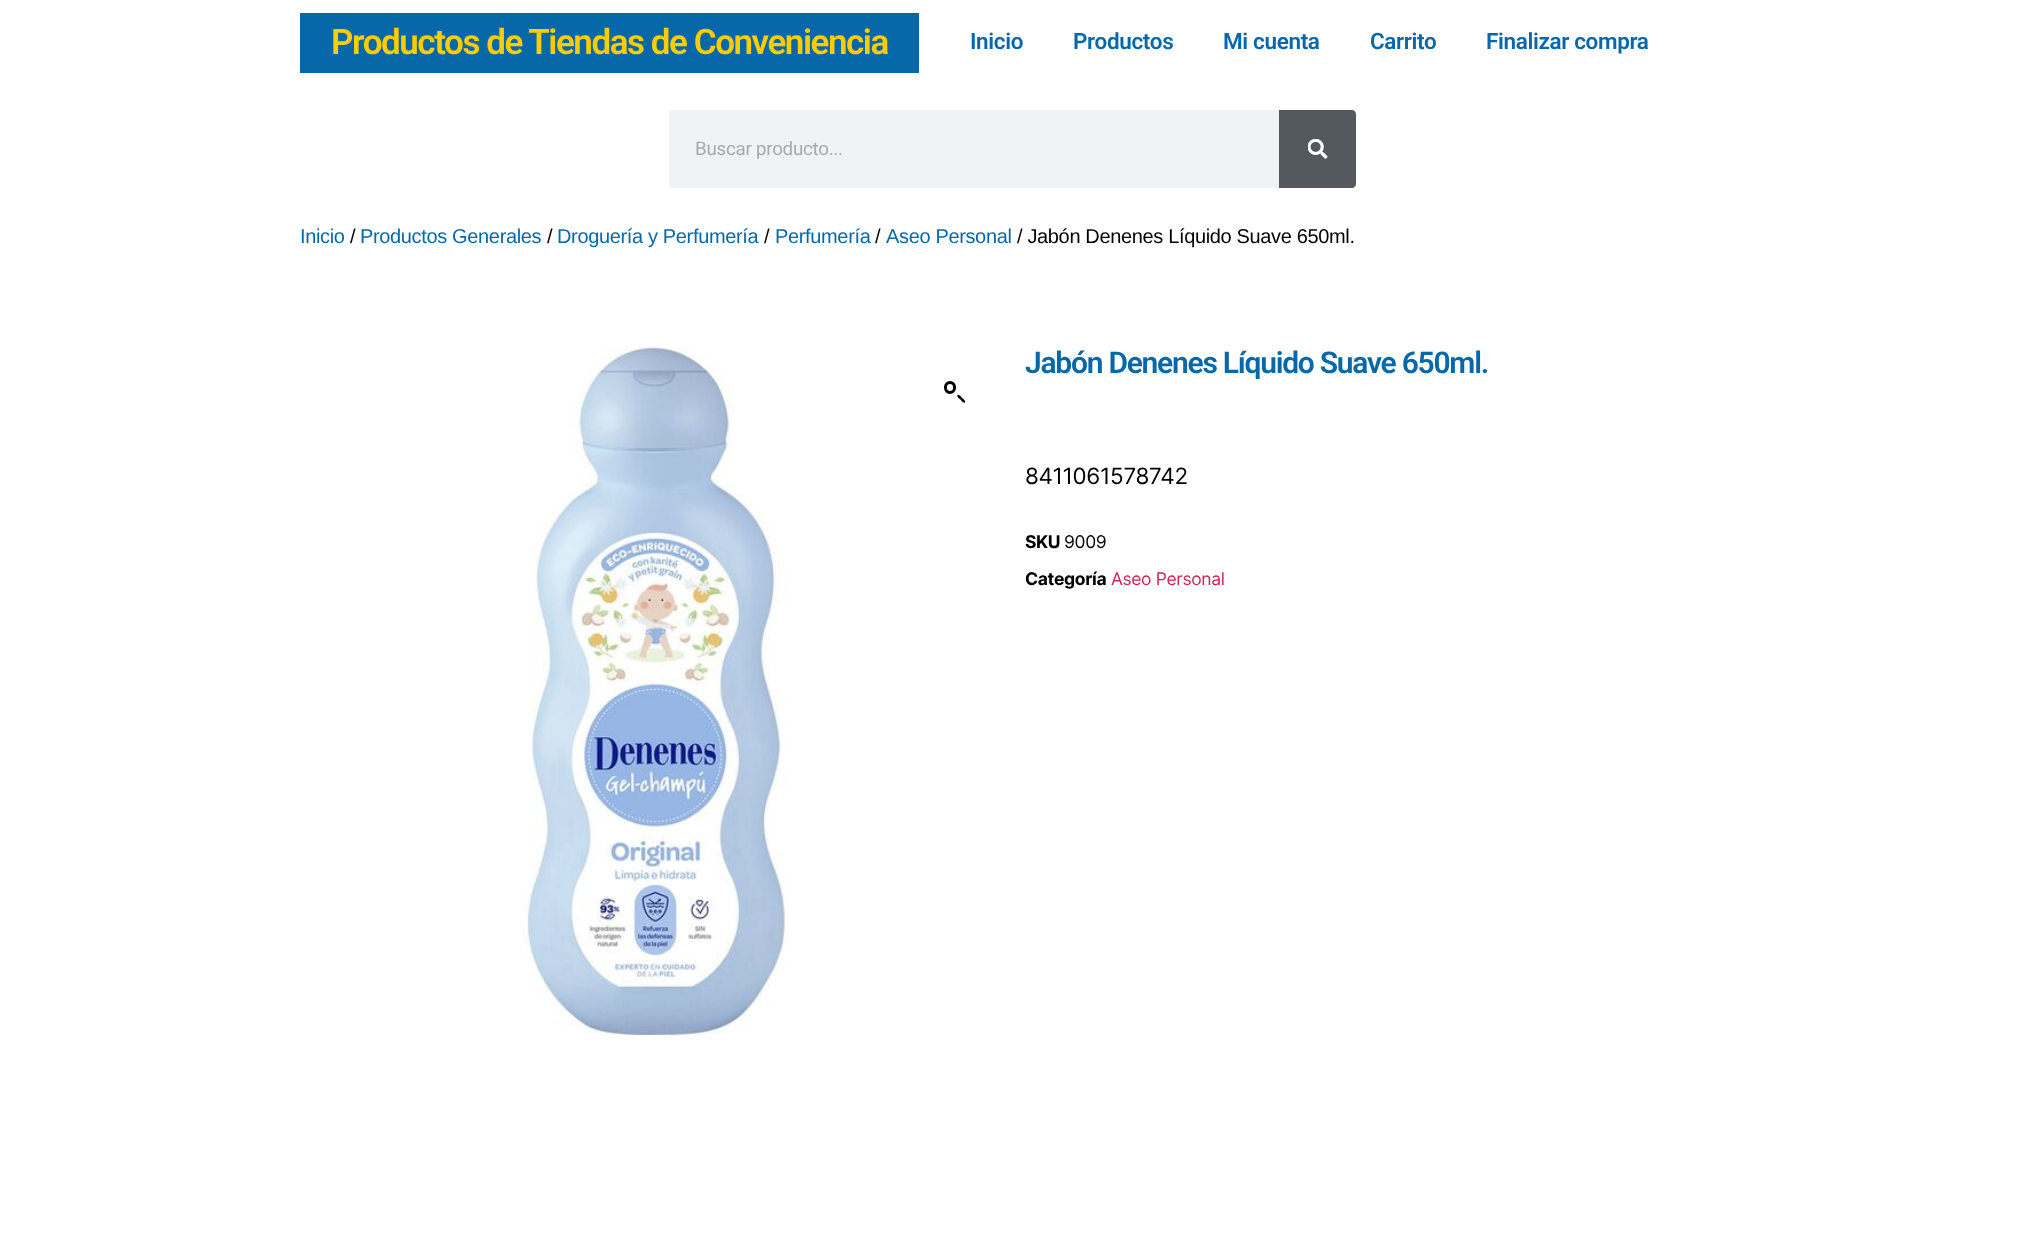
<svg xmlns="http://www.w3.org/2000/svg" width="2024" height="1260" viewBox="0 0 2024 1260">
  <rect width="100%" height="100%" fill="rgb(255,255,255)"/>
  <rect x="300" y="13" width="619" height="60" fill="rgb(7,104,169)"/>
  <text x="331" y="54" font-family="Roboto" font-size="35" font-weight="600" letter-spacing="-1.45" fill="rgb(255,204,0)">Productos de Tiendas de Conveniencia</text>
  <g font-family="Roboto" font-size="22.5" font-weight="600" letter-spacing="-0.35" fill="rgb(7,104,169)">
    <text x="970" y="49">Inicio</text>
    <text x="1073" y="49">Productos</text>
    <text x="1223" y="49">Mi cuenta</text>
    <text x="1370" y="49">Carrito</text>
    <text x="1486" y="49">Finalizar compra</text>
  </g>
  <rect x="669" y="110" width="687" height="78" rx="4" fill="rgb(241,242,243)"/>
  <text x="695" y="155" font-family="Roboto" font-size="18.75" letter-spacing="-0.25" fill="rgb(170,170,170)">Buscar producto...</text>
  <path d="M1279 110H1352C1354 110 1356 112 1356 114V184C1356 186 1354 188 1352 188H1279Z" fill="rgb(84,89,95)"/>
  <image x="1308" y="139" width="20" height="20" href="pic1.png"/>
  <text x="300" y="243" font-family="Liberation Sans" font-size="20" letter-spacing="-0.35" fill="rgb(7,104,169)">Inicio</text>
  <text x="350" y="243" font-family="Liberation Sans" font-size="20" letter-spacing="-0.35" fill="rgb(0,0,0)">/</text>
  <text x="360" y="243" font-family="Liberation Sans" font-size="20" letter-spacing="-0.35" fill="rgb(7,104,169)">Productos Generales</text>
  <text x="547" y="243" font-family="Liberation Sans" font-size="20" letter-spacing="-0.35" fill="rgb(0,0,0)">/</text>
  <text x="557" y="243" font-family="Liberation Sans" font-size="20" letter-spacing="-0.35" fill="rgb(7,104,169)">Droguería y Perfumería</text>
  <text x="764" y="243" font-family="Liberation Sans" font-size="20" letter-spacing="-0.35" fill="rgb(0,0,0)">/</text>
  <text x="775" y="243" font-family="Liberation Sans" font-size="20" letter-spacing="-0.35" fill="rgb(7,104,169)">Perfumería</text>
  <text x="875" y="243" font-family="Liberation Sans" font-size="20" letter-spacing="-0.35" fill="rgb(0,0,0)">/</text>
  <text x="886" y="243" font-family="Liberation Sans" font-size="20" letter-spacing="-0.35" fill="rgb(7,104,169)">Aseo Personal</text>
  <text x="1017" y="243" font-family="Liberation Sans" font-size="20" letter-spacing="-0.35" fill="rgb(0,0,0)">/ Jabón Denenes Líquido Suave 650ml.</text>
  <image x="523" y="347" width="266" height="688" href="pic2.png"/>
  <rect x="945.5" y="382.5" width="9" height="10" rx="4.5" fill="none" stroke="rgb(0,0,0)" stroke-width="3"/>
  <path d="M957.5 395C959 394 961.5 397 962 398C963 398.5 966 401 965 402.5C963.5 403.5 961 400.5 960.5 399.5C959.5 399 956.5 396.5 957.5 395Z" fill="rgb(0,0,0)"/>
  <text x="1025" y="373" font-family="Roboto" font-size="30" font-weight="600" letter-spacing="-1.25" fill="rgb(7,104,169)">Jabón Denenes Líquido Suave 650ml.</text>
  <text x="1025" y="484" font-family="Inter" font-size="22.5" letter-spacing="-0.35" fill="rgb(0,0,0)">8411061578742</text>
  <text x="1025" y="548" font-family="Inter" font-size="17.5" font-weight="bold" letter-spacing="-0.35" fill="rgb(0,0,0)">SKU</text>
  <text x="1064" y="548" font-family="Inter" font-size="17.5" letter-spacing="-0.35" fill="rgb(0,0,0)">9009</text>
  <text x="1025" y="585" font-family="Inter" font-size="17.5" font-weight="bold" letter-spacing="-0.35" fill="rgb(0,0,0)">Categoría</text>
  <text x="1111" y="585" font-family="Inter" font-size="17.5" letter-spacing="-0.35" fill="rgb(205,38,83)">Aseo Personal</text>
</svg>
